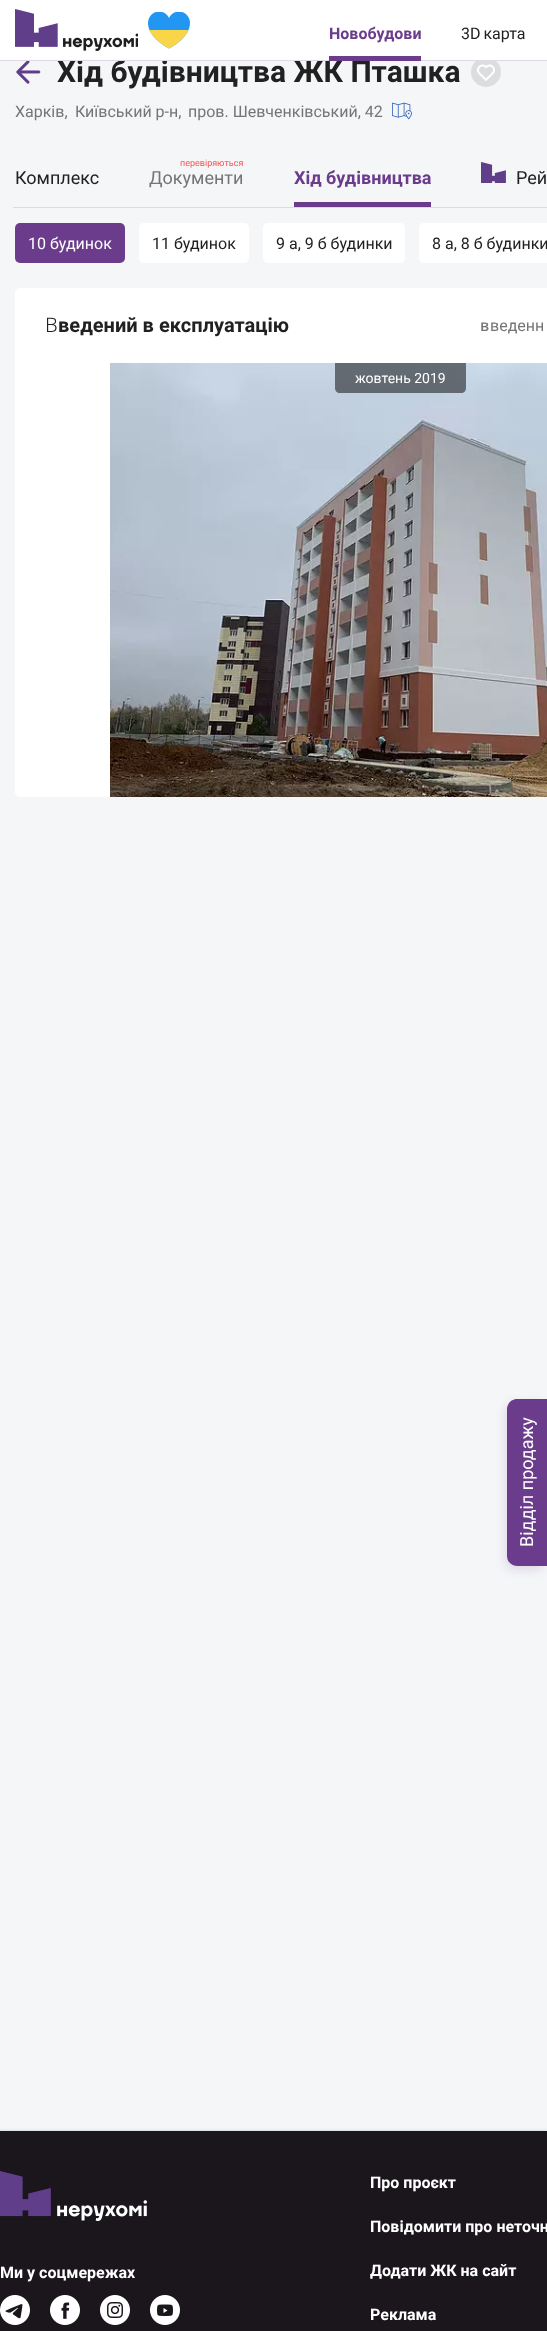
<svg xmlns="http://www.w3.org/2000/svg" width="547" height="2331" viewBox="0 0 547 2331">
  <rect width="100%" height="100%" fill="rgb(244,246,248)"/>
  <text x="57" y="82" font-family="Roboto" font-size="30" font-weight="bold" fill="rgb(33,33,33)">Хід будівництва ЖК Пташка</text>
  <circle cx="486" cy="72" r="15" fill="rgb(220,221,223)"/>
  <rect x="0" y="0" width="547" height="60" fill="rgb(255,255,255)"/>
  <rect x="0" y="60" width="547" height="1" fill="rgb(223,216,231)"/>
  <image x="15" y="9" width="123" height="42" href="pic1.png"/>
  <image x="148" y="12" width="42" height="37" href="pic2.png"/>
  <text x="329" y="39" font-family="Roboto" font-size="16" font-weight="bold" fill="rgb(107,60,140)">Новобудови</text>
  <rect x="329" y="56" width="92" height="5" fill="rgb(107,60,140)"/>
  <text x="461" y="39" word-spacing="-1" font-family="Roboto" font-size="16" fill="rgb(33,33,33)">3D карта</text>
  <image x="16" y="61" width="25" height="23" href="pic3.png"/>
  <image x="477" y="64" width="18" height="17" href="pic4.png"/>
  <g font-family="Roboto" font-size="16" fill="rgb(117,117,117)">
    <text x="15" y="117">Харків,</text>
    <text x="75" y="117">Київський р-н,</text>
    <text x="188" y="117">пров. Шевченківський, 42</text>
  </g>
  <image x="392" y="102" width="20" height="18" href="pic5.png"/>
  <rect x="13" y="207" width="534" height="1" fill="rgb(223,216,231)"/>
  <text x="15" y="184" font-family="Roboto" font-size="18" fill="rgb(33,33,33)">Комплекс</text>
  <text x="180" y="166" font-family="Roboto" font-size="9" fill="rgb(255,82,82)">перевіряються</text>
  <text x="149" y="184" font-family="Roboto" font-size="18" fill="rgb(117,117,117)">Документи</text>
  <text x="294" y="184" font-family="Roboto" font-size="18" font-weight="bold" fill="rgb(107,60,140)">Хід будівництва</text>
  <rect x="294" y="202" width="137" height="5" fill="rgb(107,60,140)"/>
  <image x="481" y="162" width="25" height="21" href="pic6.png"/>
  <text x="516" y="184" font-family="Roboto" font-size="18" fill="rgb(33,33,33)">Рей</text>
  <rect x="15" y="223" width="110" height="40" rx="5" fill="rgb(107,60,140)"/>
  <text x="28" y="249" font-family="Roboto" font-size="16" fill="rgb(255,255,255)">10 будинок</text>
  <rect x="139" y="223" width="110" height="40" rx="5" fill="rgb(255,255,255)"/>
  <text x="152" y="249" font-family="Roboto" font-size="16" fill="rgb(33,33,33)">11 будинок</text>
  <rect x="263" y="223" width="142" height="40" rx="5" fill="rgb(255,255,255)"/>
  <text x="276" y="249" font-family="Roboto" font-size="16" fill="rgb(33,33,33)">9 а, 9 б будинки</text>
  <rect x="419" y="223" width="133" height="40" rx="5" fill="rgb(255,255,255)"/>
  <text x="432" y="249" font-family="Roboto" font-size="16" fill="rgb(33,33,33)">8 а, 8 б будинки</text>
  <rect x="15" y="288" width="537" height="509" rx="5" fill="rgb(255,255,255)"/>
  <text x="45" y="332" font-family="Noto Sans" font-size="20" font-weight="300" fill="rgb(33,33,33)">В</text>
  <text x="58" y="332" font-family="Roboto" font-size="20" font-weight="bold" fill="rgb(33,33,33)">ведений в експлуатацію</text>
  <text x="480" y="331" font-family="Noto Sans" font-size="16" font-weight="500" fill="rgb(117,117,117)">в</text>
  <text x="490" y="331" font-family="Roboto" font-size="16" fill="rgb(117,117,117)">веденн</text>
  <image x="110" y="363" width="437" height="434" href="pic7.png"/>
  <path d="M335 363H466V388C466 391 464 393 461 393H340C337 393 335 391 335 388Z" fill="rgba(0,0,0,0.5)"/>
  <text x="355" y="383" font-family="Roboto" font-size="14" fill="rgb(255,255,255)">жовтень 2019</text>
  <rect x="505" y="1403" width="40" height="167" rx="10" fill="rgb(223,216,231)" filter="blur(5px)"/>
  <path d="M517 1399H547V1566H517C511.5 1566 507 1561.5 507 1556V1409C507 1403.5 511.5 1399 517 1399Z" fill="rgb(107,60,140)"/>
  <text x="533" y="1547" transform="rotate(-90 533 1547)" font-family="Roboto" font-size="18" fill="rgb(255,255,255)">Відділ продажу</text>
  <rect x="0" y="2130" width="547" height="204" fill="rgba(0,0,0,0.1)" filter="blur(1px)"/>
  <rect x="0" y="2131" width="547" height="200" fill="rgb(26,22,27)"/>
  <image x="0" y="2171" width="147" height="50" href="pic8.png"/>
  <text x="0" y="2278" font-family="Roboto" font-size="16" font-weight="bold" fill="rgb(255,255,255)">Ми у соцмережах</text>
  <image x="0" y="2295" width="30" height="30" href="pic9.png"/>
  <image x="50" y="2295" width="30" height="30" href="pic10.png"/>
  <image x="100" y="2295" width="30" height="30" href="pic11.png"/>
  <image x="150" y="2295" width="30" height="30" href="pic12.png"/>
  <g font-family="Roboto" font-size="16" font-weight="bold" fill="rgb(255,255,255)">
    <text x="370" y="2188">Про проєкт</text>
    <text x="370" y="2232">Повідомити про неточн</text>
    <text x="370" y="2276">Додати ЖК на сайт</text>
    <text x="370" y="2320">Реклама</text>
  </g>
</svg>
